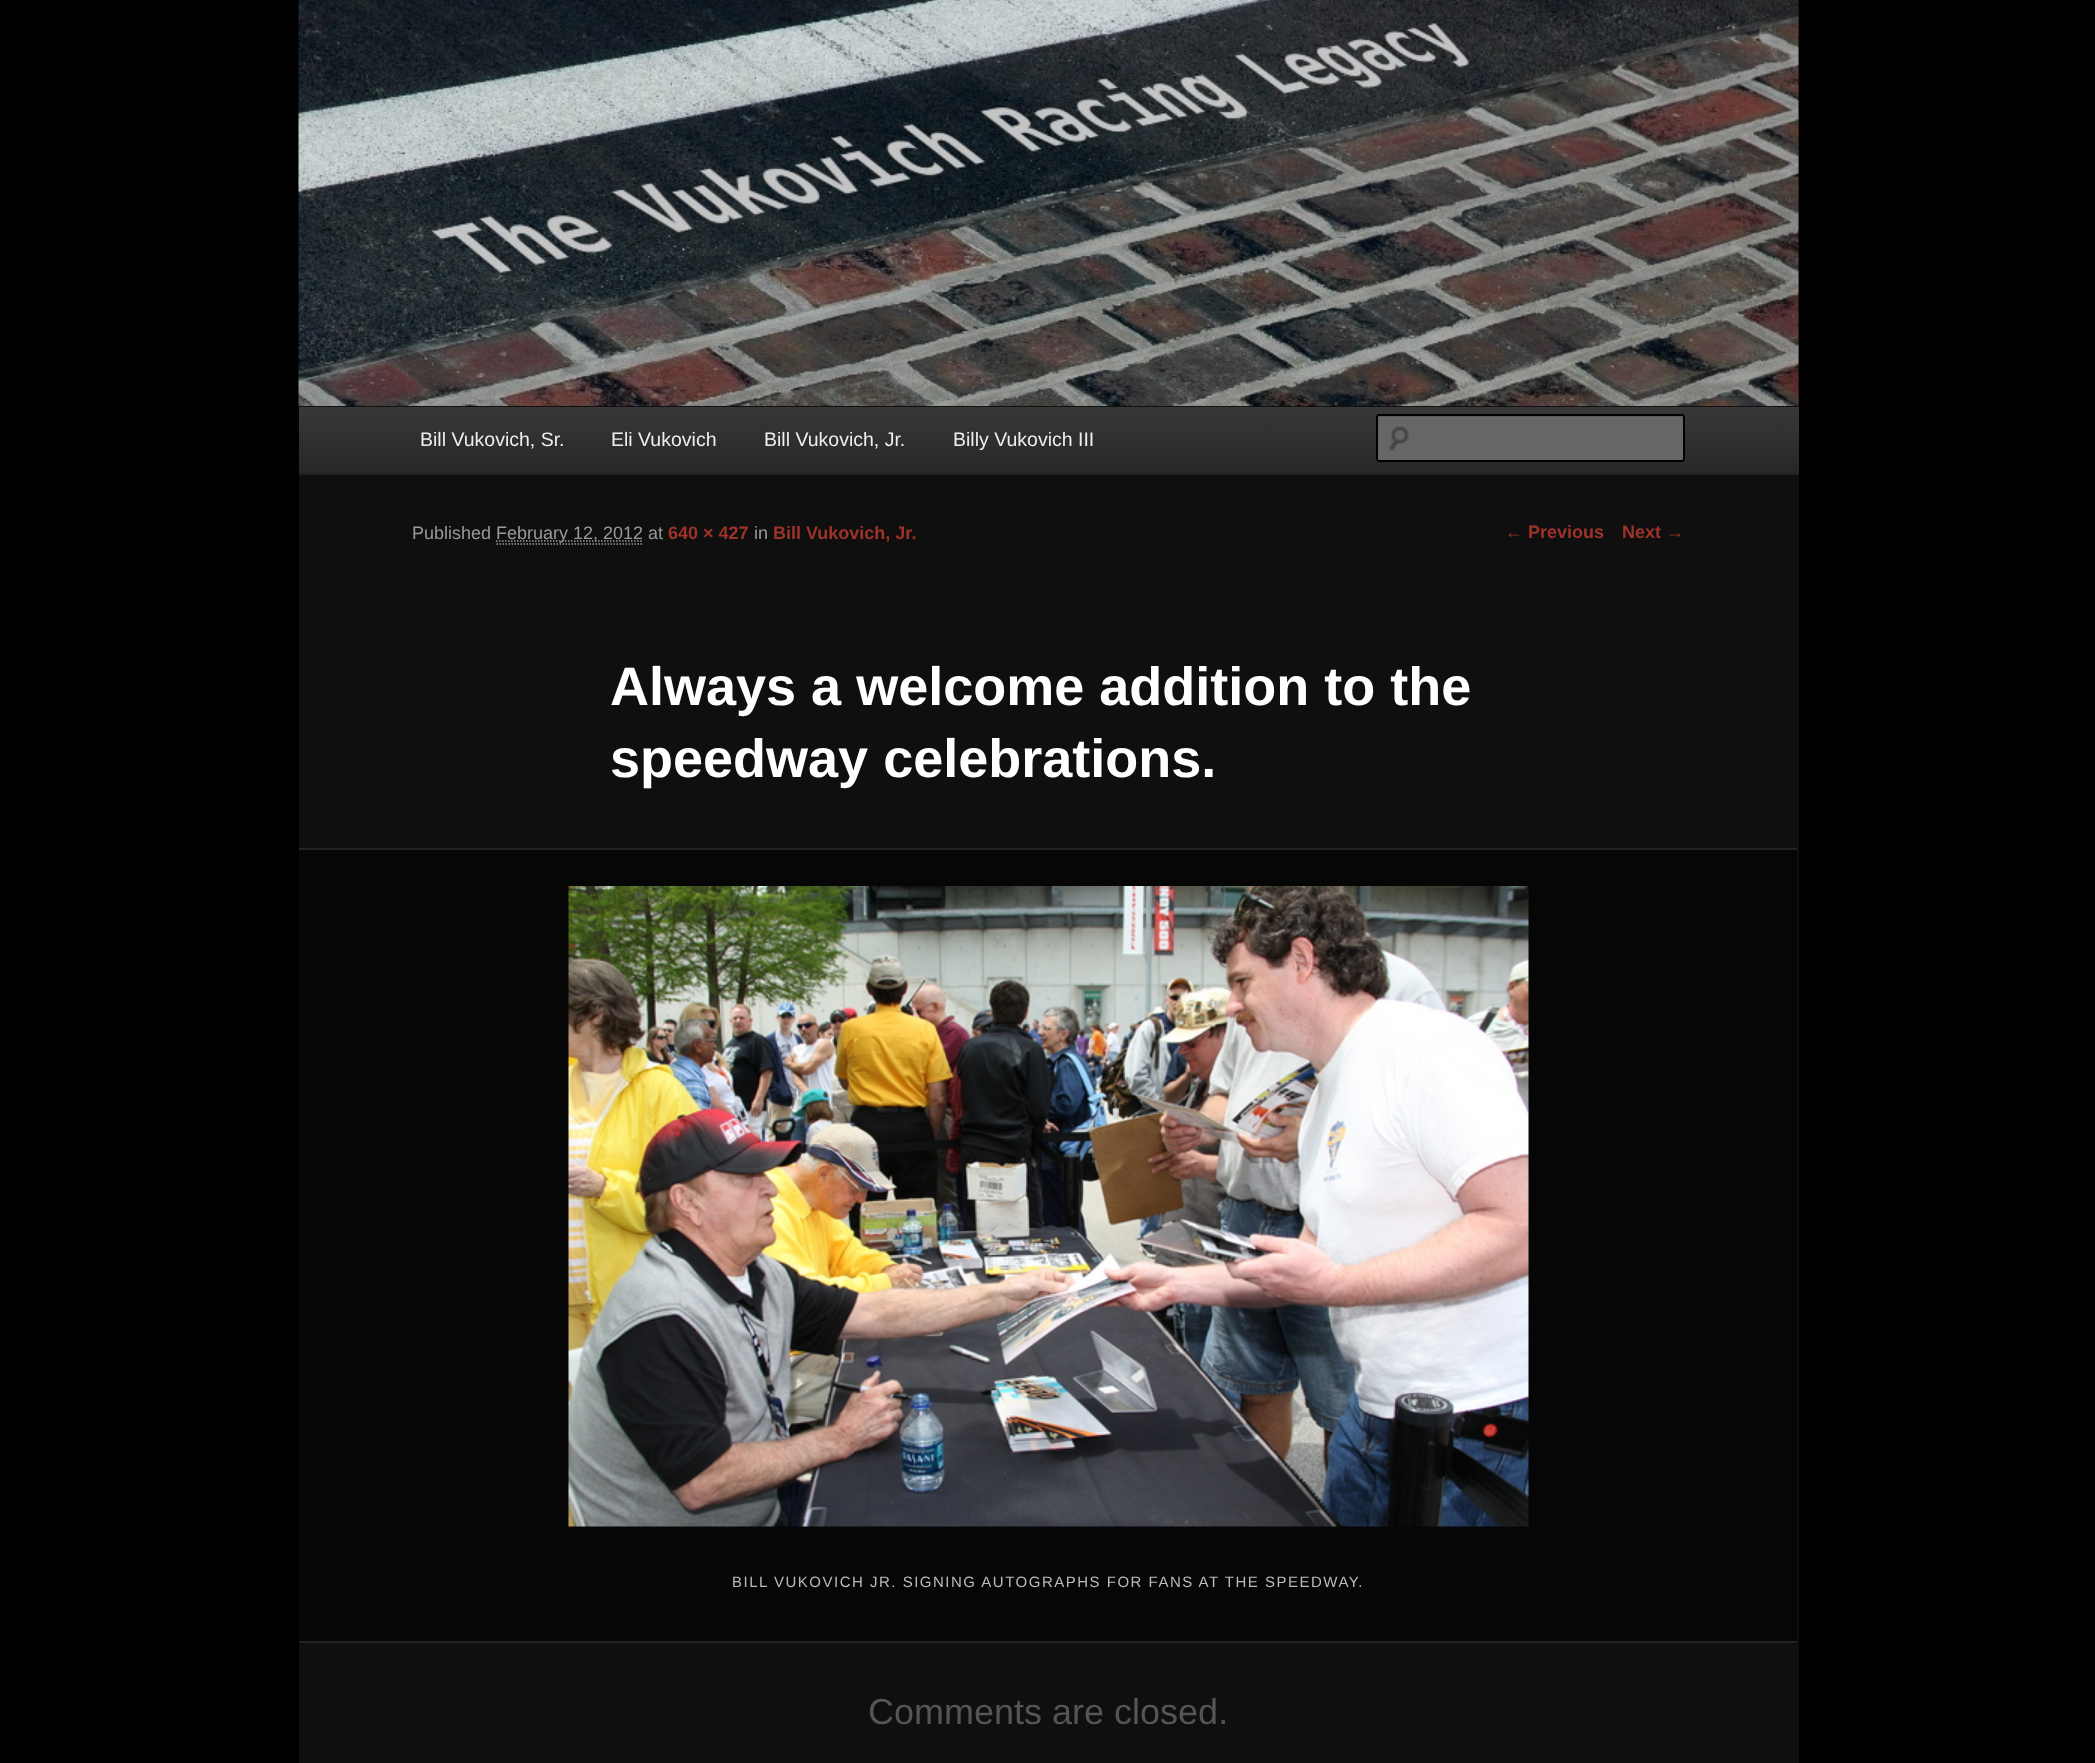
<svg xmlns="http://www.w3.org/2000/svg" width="2095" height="1763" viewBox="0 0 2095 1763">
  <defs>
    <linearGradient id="g1" gradientUnits="userSpaceOnUse" x1="1049" y1="406" x2="1049" y2="473"><stop offset="0" stop-color="rgb(56,56,56)"/><stop offset="1" stop-color="rgb(39,39,39)"/></linearGradient>
  </defs>
  <rect width="100%" height="100%" fill="rgb(0,0,0)"/>
  <rect x="299" y="0" width="1500" height="1763" fill="rgb(15,15,15)"/>
  <image x="298" y="0" width="1501" height="406" href="pic1.png"/>
  <rect x="299" y="407" width="1500" height="66" fill="url(#g1)"/>
  <rect x="299" y="473" width="1500" height="2" fill="rgb(34,34,34)"/>
  <g font-family="Liberation Sans" font-size="19.5" fill="rgb(238,238,238)">
    <text x="420" y="446">Bill Vukovich, Sr.</text>
    <text x="611" y="446">Eli Vukovich</text>
    <text x="764" y="446">Bill Vukovich, Jr.</text>
    <text x="953" y="446">Billy Vukovich III</text>
  </g>
  <rect x="1376" y="414" width="309" height="48" rx="3" fill="rgb(102,102,102)"/>
  <image x="1389" y="426" width="20" height="25" href="pic2.png"/>
  <path d="M1378 417H1682L1683 418C1683 417 1683 416 1682 416H1378L1377 417V418Z" fill="rgb(92,92,92)"/>
  <rect x="1377" y="415" width="307" height="46" rx="2" fill="none" stroke="rgb(0,0,0)" stroke-width="2"/>
  <text x="412" y="539" font-family="Liberation Sans" font-size="18" fill="rgb(153,153,153)">Published</text>
  <path d="M496 541H643" fill="none" stroke="rgb(153,153,153)" stroke-width="1.5" stroke-dasharray="1.5 1.5"/>
  <text x="496" y="539" font-family="Liberation Sans" font-size="18" fill="rgb(153,153,153)">February 12, 2012 at</text>
  <path d="M496.5 544H643.5" fill="none" stroke="rgb(153,153,153)" stroke-width="1.5" stroke-dasharray="1.5 1.5"/>
  <text x="668" y="539" font-family="Liberation Sans" font-size="18" font-weight="bold" fill="rgb(158,51,40)">640 × 427</text>
  <text x="754" y="539" font-family="Liberation Sans" font-size="18" fill="rgb(153,153,153)">in</text>
  <text x="773" y="539" font-family="Liberation Sans" font-size="18" font-weight="bold" fill="rgb(158,51,40)">Bill Vukovich, Jr.</text>
  <g font-family="Liberation Sans" font-size="54" font-weight="bold" fill="rgb(255,255,255)">
    <text>
      <tspan x="610" y="705">Always a welcome addition to the</tspan>
      <tspan x="610" y="777">speedway celebrations.</tspan>
    </text>
  </g>
  <rect x="299" y="850" width="1498" height="791" fill="rgb(6,6,6)"/>
  <rect x="299" y="848" width="1498" height="2" fill="rgb(34,34,34)"/>
  <rect x="299" y="1641" width="1498" height="2" fill="rgb(34,34,34)"/>
  <image x="568" y="886" width="961" height="641" href="pic3.png"/>
  <text x="732" y="1587" font-family="Liberation Sans" font-size="15" letter-spacing="1.5" fill="rgb(187,187,187)">BILL VUKOVICH JR. SIGNING AUTOGRAPHS FOR FANS AT THE SPEEDWAY.</text>
  <g font-family="Liberation Sans" font-size="18" font-weight="bold" fill="rgb(158,51,40)">
    <text x="1505" y="538">← Previous</text>
    <text x="1622" y="538">Next →</text>
  </g>
  <text x="868" y="1724" font-family="Liberation Sans" font-size="36" fill="rgb(85,85,85)">Comments are closed.</text>
</svg>
